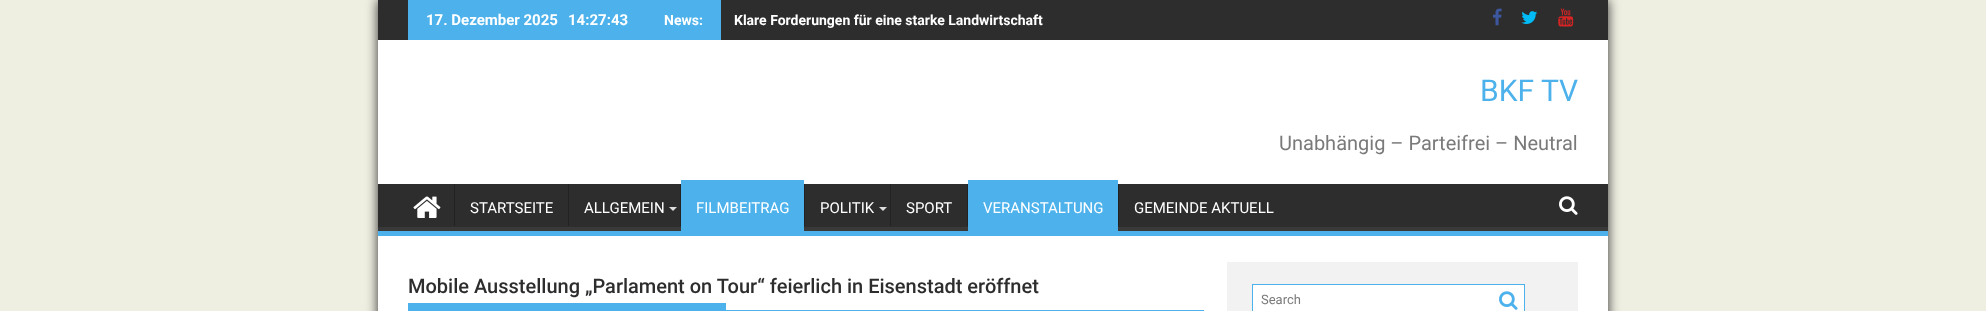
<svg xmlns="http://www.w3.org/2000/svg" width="1986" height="311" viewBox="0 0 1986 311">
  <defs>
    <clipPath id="clip1"><rect x="378" y="184" width="1230" height="47"/></clipPath>
  </defs>
  <rect width="100%" height="100%" fill="rgb(238,238,225)"/>
  <rect x="378" y="0" width="1230" height="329" fill="rgb(45,45,45)" filter="blur(6px)"/>
  <rect x="378" y="40" width="1230" height="271" fill="rgb(255,255,255)"/>
  <rect x="378" y="0" width="1230" height="40" fill="rgb(45,45,45)"/>
  <rect x="408" y="0" width="313" height="40" fill="rgb(77,178,236)"/>
  <g font-family="Roboto" font-size="15" font-weight="bold" fill="rgb(255,255,255)">
    <text x="426" y="25">17. Dezember 2025</text>
    <text x="568" y="25">14:27:43</text>
  </g>
  <g font-family="Roboto" font-size="14" font-weight="bold" fill="rgb(255,255,255)">
    <text x="664" y="25">News:</text>
    <text x="734" y="25">Klare Forderungen für eine starke Landwirtschaft</text>
  </g>
  <image x="1492" y="8" width="10" height="18" href="pic1.png"/>
  <image x="1521" y="11" width="17" height="13" href="pic2.png"/>
  <image x="1558" y="8" width="16" height="19" href="pic3.png"/>
  <text x="1480" y="101" font-family="Roboto" font-size="30" fill="rgb(77,178,236)">BKF TV</text>
  <text x="1279" y="150" font-family="Roboto" font-size="20" fill="rgb(122,122,122)">Unabhängig – Parteifrei – Neutral</text>
  <rect x="378" y="184" width="1230" height="43" fill="rgb(45,45,45)"/>
  <g clip-path="url(#clip1)">
    <path d="M279 85H1707V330H279ZM377 178H1607C1609 179 1608 193 1608 195V226L1607 227H377L376 226V178Z" fill="rgb(57,57,57)" fill-rule="evenodd"/>
  </g>
  <rect x="378" y="231" width="1230" height="5" fill="rgb(77,178,236)"/>
  <image x="413" y="196" width="28" height="22" href="pic4.png"/>
  <rect x="454" y="184" width="1" height="42" fill="rgb(34,34,34)"/>
  <text x="470" y="213" font-family="Roboto" font-size="15" fill="rgb(255,255,255)">STARTSEITE</text>
  <rect x="568" y="184" width="1" height="42" fill="rgb(34,34,34)"/>
  <text x="584" y="213" font-family="Roboto" font-size="15" fill="rgb(255,255,255)">ALLGEMEIN</text>
  <path d="M669 207H677L673 211Z" fill="rgb(221,221,221)"/>
  <rect x="680" y="184" width="1" height="42" fill="rgb(34,34,34)"/>
  <rect x="681" y="180" width="123" height="51" fill="rgb(77,178,236)"/>
  <text x="696" y="213" font-family="Roboto" font-size="15" fill="rgb(255,255,255)">FILMBEITRAG</text>
  <rect x="804" y="184" width="1" height="42" fill="rgb(34,34,34)"/>
  <text x="820" y="213" font-family="Roboto" font-size="15" fill="rgb(255,255,255)">POLITIK</text>
  <path d="M879 207H887L883 211Z" fill="rgb(221,221,221)"/>
  <rect x="890" y="184" width="1" height="42" fill="rgb(34,34,34)"/>
  <text x="906" y="213" font-family="Roboto" font-size="15" fill="rgb(255,255,255)">SPORT</text>
  <rect x="967" y="184" width="1" height="42" fill="rgb(34,34,34)"/>
  <rect x="968" y="180" width="150" height="51" fill="rgb(77,178,236)"/>
  <text x="983" y="213" font-family="Roboto" font-size="15" fill="rgb(255,255,255)">VERANSTALTUNG</text>
  <rect x="1118" y="184" width="1" height="42" fill="rgb(34,34,34)"/>
  <text x="1134" y="213" font-family="Roboto" font-size="15" fill="rgb(255,255,255)">GEMEINDE AKTUELL</text>
  <image x="1559" y="196" width="19" height="19" href="pic5.png"/>
  <rect x="408" y="310" width="796" height="1" fill="rgb(77,178,236)"/>
  <text x="408" y="293" font-family="Roboto" font-size="20" font-weight="500" fill="rgb(45,45,45)">Mobile Ausstellung „Parlament on Tour“ feierlich in Eisenstadt eröffnet</text>
  <rect x="408" y="303" width="318" height="7" fill="rgb(77,178,236)"/>
  <rect x="1227" y="262" width="351" height="49" fill="rgb(242,242,242)"/>
  <rect x="1252.5" y="284.5" width="272" height="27" fill="rgb(255,255,255)" stroke="rgb(77,178,236)"/>
  <text x="1261" y="304" font-family="Roboto" font-size="13" fill="rgb(122,122,122)">Search</text>
  <image x="1499" y="291" width="19" height="19" href="pic6.png"/>
</svg>
